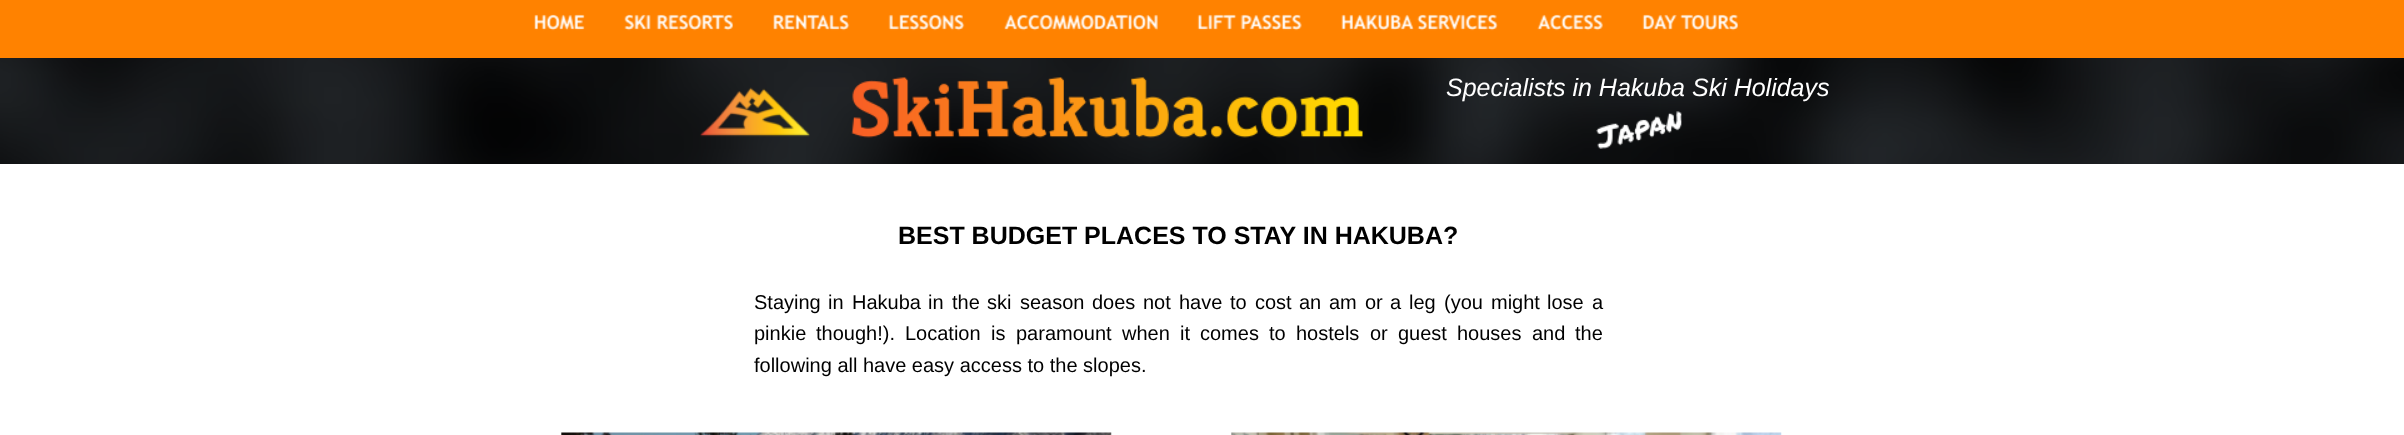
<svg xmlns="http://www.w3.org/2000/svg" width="2404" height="435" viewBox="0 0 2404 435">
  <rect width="100%" height="100%" fill="rgb(255,255,255)"/>
  <image x="0" y="58" width="2404" height="106" href="pic1.png"/>
  <rect x="0" y="0" width="2404" height="58" fill="rgb(255,130,0)"/>
  <image x="534" y="14" width="51" height="17" href="pic2.png"/>
  <image x="624" y="14" width="109" height="17" href="pic3.png"/>
  <image x="773" y="14" width="77" height="17" href="pic4.png"/>
  <image x="888" y="14" width="77" height="17" href="pic5.png"/>
  <image x="1004" y="14" width="154" height="17" href="pic6.png"/>
  <image x="1197" y="14" width="105" height="17" href="pic7.png"/>
  <image x="1341" y="14" width="157" height="17" href="pic8.png"/>
  <image x="1537" y="14" width="66" height="17" href="pic9.png"/>
  <image x="1642" y="14" width="97" height="17" href="pic10.png"/>
  <image x="700" y="87" width="110" height="50" href="pic11.png"/>
  <image x="851" y="77" width="512" height="61" href="pic12.png"/>
  <text x="1446" y="96" font-family="Liberation Sans" font-size="25" font-style="italic" fill="rgb(255,255,255)">Specialists in Hakuba Ski Holidays</text>
  <image x="1596" y="111" width="86" height="38" href="pic13.png"/>
  <text x="898" y="244" font-family="Liberation Sans" font-size="25" font-weight="bold" fill="rgb(0,0,0)">BEST BUDGET PLACES TO STAY IN HAKUBA?</text>
  <g font-family="Liberation Sans" font-size="20" fill="rgb(0,0,0)">
    <text x="754" y="309">Staying</text>
    <text x="828" y="309">in</text>
    <text x="852" y="309">Hakuba</text>
    <text x="928" y="309">in</text>
    <text x="952" y="309">the</text>
    <text x="987" y="309">ski</text>
    <text x="1020" y="309">season</text>
    <text x="1092" y="309">does</text>
    <text x="1143" y="309">not</text>
    <text x="1179" y="309">have</text>
    <text x="1230" y="309">to</text>
    <text x="1255" y="309">cost</text>
    <text x="1299" y="309">an</text>
    <text x="1329" y="309">am</text>
    <text x="1365" y="309">or</text>
    <text x="1390" y="309">a</text>
    <text x="1409" y="309">leg</text>
    <text x="1444" y="309">(you</text>
    <text x="1491" y="309">might</text>
    <text x="1547" y="309">lose</text>
    <text x="1592" y="309">a</text>
    <text x="754" y="340">pinkie</text>
    <text x="816" y="340">though!).</text>
    <text x="905" y="340">Location</text>
    <text x="991" y="340">is</text>
    <text x="1016" y="340">paramount</text>
    <text x="1122" y="340">when</text>
    <text x="1180" y="340">it</text>
    <text x="1200" y="340">comes</text>
    <text x="1269" y="340">to</text>
    <text x="1296" y="340">hostels</text>
    <text x="1370" y="340">or</text>
    <text x="1398" y="340">guest</text>
    <text x="1457" y="340">houses</text>
    <text x="1532" y="340">and</text>
    <text x="1575" y="340">the</text>
    <text x="754" y="372">following all have easy access to the slopes.</text>
  </g>
  <image x="561" y="432" width="551" height="3" href="pic14.png"/>
  <image x="1231" y="432" width="551" height="3" href="pic15.png"/>
</svg>
